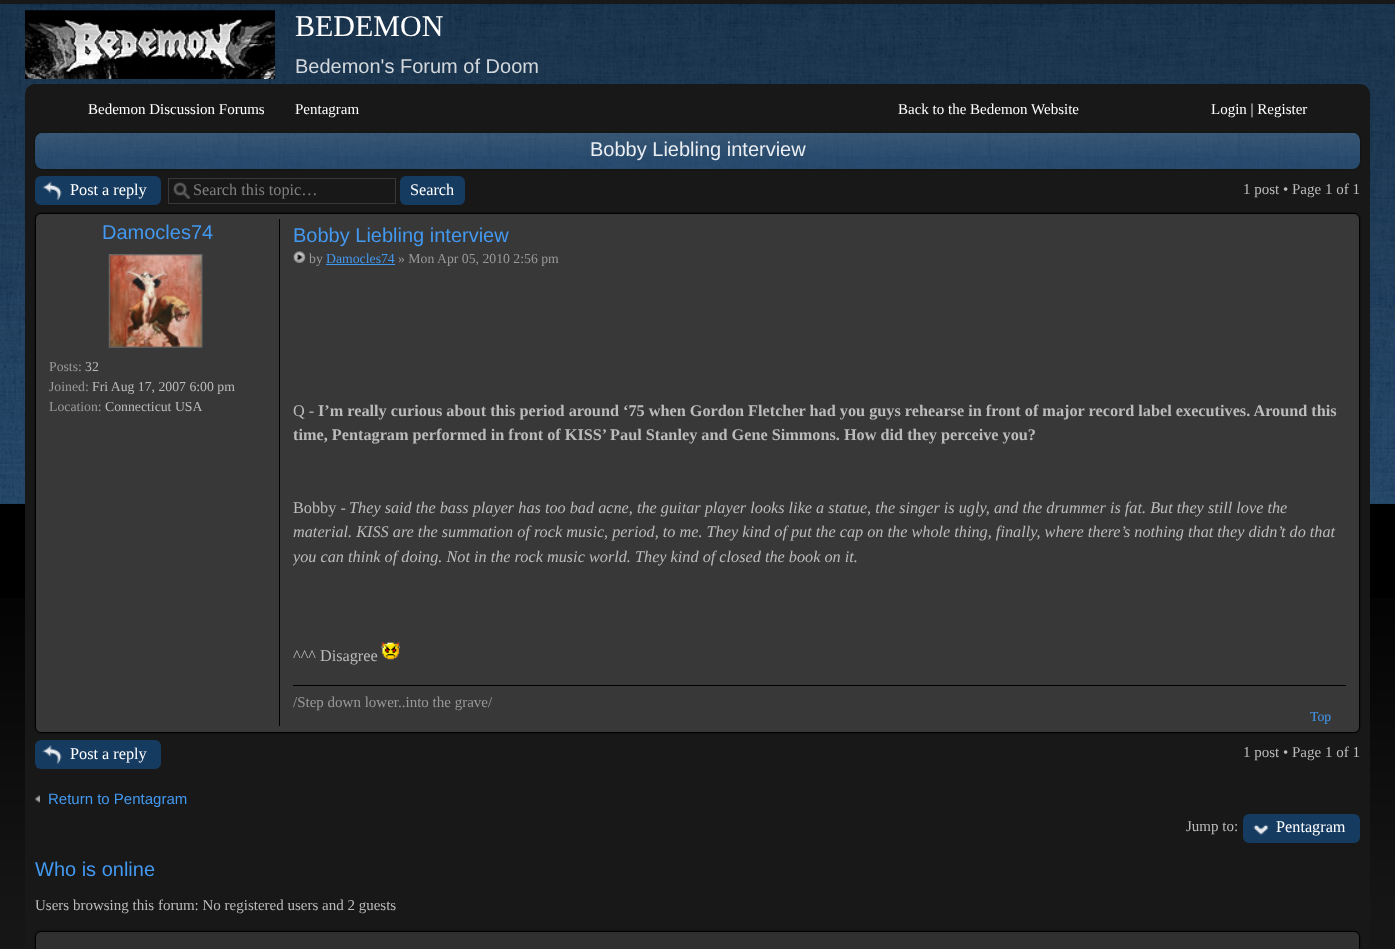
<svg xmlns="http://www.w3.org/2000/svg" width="1395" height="949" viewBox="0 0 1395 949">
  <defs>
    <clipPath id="clip1"><rect x="293" y="276" width="1053" height="397"/></clipPath>
  </defs>
  <rect width="100%" height="100%" fill="rgb(24,24,24)"/>
  <rect x="0" y="4" width="1395" height="500" fill="rgb(22,59,96)"/>
  <image x="0" y="4" width="1395" height="500" href="pic1.png"/>
  <rect x="0" y="504" width="1395" height="445" fill="rgb(0,0,0)"/>
  <image x="0" y="598" width="1395" height="351" href="pic2.png"/>
  <image x="25" y="10" width="250" height="69" href="pic3.png"/>
  <text x="295" y="36" font-family="Liberation Serif" font-size="30" fill="rgb(255,255,255)">BEDEMON</text>
  <text x="295" y="73" font-family="Liberation Sans" font-size="20" fill="rgb(210,215,220)">Bedemon's Forum of Doom</text>
  <rect x="25" y="84" width="1345" height="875" rx="10" fill="rgb(24,24,24)"/>
  <g font-family="Liberation Serif" font-size="15" fill="rgb(255,255,255)">
    <text x="88" y="114">Bedemon Discussion Forums</text>
    <text x="295" y="114">Pentagram</text>
    <text x="898" y="114">Back to the Bedemon Website</text>
    <text x="1211" y="114">Login | Register</text>
  </g>
  <rect x="35" y="133" width="1325" height="36" rx="8" fill="rgba(0,0,0,0.5)" filter="blur(1px)"/>
  <image x="35" y="132" width="1325" height="37" href="pic4.png"/>
  <text x="590" y="156" font-family="Liberation Sans" font-size="20" fill="rgb(234,237,241)">Bobby Liebling interview</text>
  <rect x="35" y="176" width="126" height="29" rx="6" fill="rgb(22,59,96)"/>
  <image x="42" y="181" width="20" height="19" href="pic5.png"/>
  <text x="70" y="195" font-family="Liberation Serif" font-size="16.25" fill="rgb(255,255,255)">Post a reply</text>
  <image x="173" y="182" width="17" height="17" href="pic6.png"/>
  <rect x="168.5" y="178.5" width="227" height="25" fill="none" stroke="rgb(56,56,56)"/>
  <text x="193" y="195" font-family="Liberation Serif" font-size="16.25" fill="rgb(128,128,128)">Search this topic…</text>
  <rect x="400" y="176" width="65" height="29" rx="6" fill="rgb(22,59,96)"/>
  <text x="410" y="195" font-family="Liberation Serif" font-size="16.25" fill="rgb(255,255,255)">Search</text>
  <text x="1243" y="194" font-family="Liberation Serif" font-size="15" fill="rgb(187,187,187)">1 post • Page 1 of 1</text>
  <rect x="35" y="213" width="1325" height="520" rx="6" fill="rgba(0,0,0,0.5)" filter="blur(1px)"/>
  <rect x="35.5" y="213.5" width="1324" height="519" rx="5.5" fill="rgb(56,56,56)" stroke="rgb(0,0,0)"/>
  <text x="102" y="239" font-family="Liberation Sans" font-size="20" fill="rgb(67,152,239)">Damocles74</text>
  <image x="108" y="254" width="95" height="94" href="pic7.png"/>
  <text x="49" y="371" font-family="Liberation Serif" font-size="13.75" fill="rgb(153,153,153)">Posts:</text>
  <text x="85" y="371" font-family="Liberation Serif" font-size="13.75" fill="rgb(187,187,187)">32</text>
  <text x="49" y="391" font-family="Liberation Serif" font-size="13.75" fill="rgb(153,153,153)">Joined:</text>
  <text x="92" y="391" font-family="Liberation Serif" font-size="13.75" fill="rgb(187,187,187)">Fri Aug 17, 2007 6:00 pm</text>
  <text x="49" y="411" font-family="Liberation Serif" font-size="13.75" fill="rgb(153,153,153)">Location:</text>
  <text x="105" y="411" font-family="Liberation Serif" font-size="13.75" fill="rgb(187,187,187)">Connecticut USA</text>
  <rect x="279" y="219" width="1" height="507" fill="rgb(0,0,0)"/>
  <text x="293" y="242" font-family="Liberation Sans" font-size="20" fill="rgb(67,152,239)">Bobby Liebling interview</text>
  <image x="293" y="251" width="13" height="12" href="pic8.png"/>
  <text x="309" y="263" font-family="Liberation Serif" font-size="13.75" fill="rgb(153,153,153)">by</text>
  <text x="326" y="263" font-family="Liberation Serif" font-size="13.75" fill="rgb(67,152,239)">Damocles74</text>
  <rect x="326" y="264" width="69" height="1" fill="rgb(67,152,239)"/>
  <text x="398" y="263" font-family="Liberation Serif" font-size="13.75" fill="rgb(153,153,153)">» Mon Apr 05, 2010 2:56 pm</text>
  <text x="293" y="416" font-family="Liberation Serif" font-size="16.25" fill="rgb(187,187,187)">Q -</text>
  <g font-family="Liberation Serif" font-size="16.25" font-weight="bold" fill="rgb(187,187,187)">
    <text x="318" y="416">I’m really curious about this period around ‘75 when Gordon Fletcher had you guys rehearse in front of major record label executives. Around this</text>
    <text x="293" y="440">time, Pentagram performed in front of KISS’ Paul Stanley and Gene Simmons. How did they perceive you?</text>
  </g>
  <text x="293" y="513" font-family="Liberation Serif" font-size="16.25" fill="rgb(187,187,187)">Bobby -</text>
  <g font-family="Liberation Serif" font-size="16.25" font-style="italic" fill="rgb(187,187,187)">
    <text x="349" y="513">They said the bass player has too bad acne, the guitar player looks like a statue, the singer is ugly, and the drummer is fat. But they still love the</text>
    <text x="293" y="537">material. KISS are the summation of rock music, period, to me. They kind of put the cap on the whole thing, finally, where there’s nothing that they didn’t do that</text>
  </g>
  <g clip-path="url(#clip1)">
    <text x="293" y="562" font-family="Liberation Serif" font-size="16.25" font-style="italic" fill="rgb(187,187,187)">you can think of doing. Not in the rock music world. They kind of closed the book on it.</text>
  </g>
  <text x="293" y="661" font-family="Liberation Serif" font-size="16.25" fill="rgb(187,187,187)">^^^ Disagree</text>
  <image x="381" y="641" width="19" height="19" href="pic9.png"/>
  <rect x="293" y="685" width="1053" height="1" fill="rgb(0,0,0)"/>
  <text x="293" y="707" font-family="Liberation Serif" font-size="15" fill="rgb(153,153,153)">/Step down lower..into the grave/</text>
  <text x="1310" y="721" font-family="Liberation Serif" font-size="13.75" fill="rgb(67,152,239)">Top</text>
  <rect x="35" y="740" width="126" height="29" rx="6" fill="rgb(22,59,96)"/>
  <image x="42" y="745" width="20" height="19" href="pic10.png"/>
  <text x="70" y="759" font-family="Liberation Serif" font-size="16.25" fill="rgb(255,255,255)">Post a reply</text>
  <text x="1243" y="757" font-family="Liberation Serif" font-size="15" fill="rgb(187,187,187)">1 post • Page 1 of 1</text>
  <image x="35" y="795" width="5" height="8" href="pic11.png"/>
  <text x="48" y="804" font-family="Liberation Sans" font-size="15" fill="rgb(67,152,239)">Return to Pentagram</text>
  <text x="1186" y="831" font-family="Liberation Serif" font-size="15" fill="rgb(187,187,187)">Jump to:</text>
  <rect x="1243" y="814" width="117" height="29" rx="6" fill="rgb(22,59,96)"/>
  <image x="1253" y="824" width="16" height="11" href="pic12.png"/>
  <text x="1276" y="832" font-family="Liberation Serif" font-size="16.25" fill="rgb(255,255,255)">Pentagram</text>
  <text x="35" y="876" font-family="Liberation Sans" font-size="20" fill="rgb(67,152,239)">Who is online</text>
  <text x="35" y="910" font-family="Liberation Serif" font-size="15" fill="rgb(187,187,187)">Users browsing this forum: No registered users and 2 guests</text>
  <rect x="35" y="931" width="1325" height="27" rx="6" fill="rgba(0,0,0,0.5)" filter="blur(1px)"/>
  <rect x="35.5" y="931.5" width="1324" height="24" rx="5.5" fill="rgb(48,48,48)" stroke="rgb(0,0,0)"/>
</svg>
